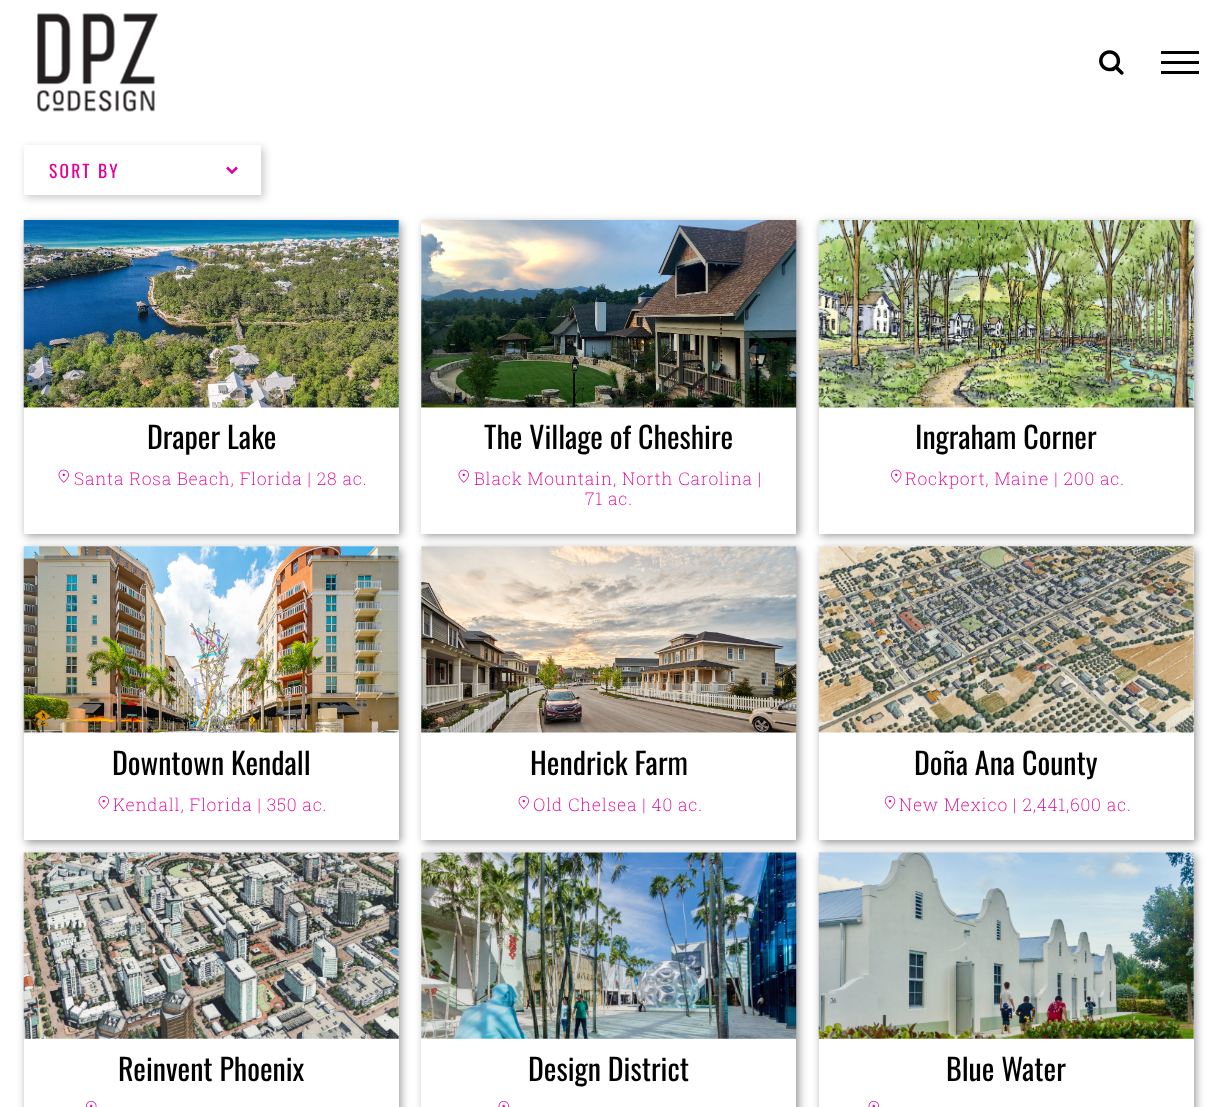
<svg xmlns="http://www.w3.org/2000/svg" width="1217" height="1107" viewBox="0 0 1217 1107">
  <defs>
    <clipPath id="clip1"><path d="M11 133H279V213H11ZM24 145H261V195H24Z" clip-rule="evenodd"/></clipPath>
    <clipPath id="clip2"><path d="M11 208H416V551H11ZM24 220H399V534H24Z" clip-rule="evenodd"/></clipPath>
    <clipPath id="clip3"><path d="M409 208H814V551H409ZM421 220H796V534H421Z" clip-rule="evenodd"/></clipPath>
    <clipPath id="clip4"><path d="M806 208H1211V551H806ZM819 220H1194V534H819Z" clip-rule="evenodd"/></clipPath>
    <clipPath id="clip5"><path d="M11 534H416V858H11ZM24 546H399V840H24Z" clip-rule="evenodd"/></clipPath>
    <clipPath id="clip6"><path d="M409 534H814V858H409ZM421 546H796V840H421Z" clip-rule="evenodd"/></clipPath>
    <clipPath id="clip7"><path d="M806 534H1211V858H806ZM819 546H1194V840H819Z" clip-rule="evenodd"/></clipPath>
    <clipPath id="clip8"><path d="M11 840H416V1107H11ZM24 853H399V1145H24Z" clip-rule="evenodd"/></clipPath>
    <clipPath id="clip9"><path d="M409 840H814V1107H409ZM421 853H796V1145H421Z" clip-rule="evenodd"/></clipPath>
    <clipPath id="clip10"><path d="M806 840H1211V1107H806ZM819 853H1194V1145H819Z" clip-rule="evenodd"/></clipPath>
  </defs>
  <rect width="100%" height="100%" fill="rgb(255,255,255)"/>
  <image x="37" y="13" width="121" height="99" href="pic1.png"/>
  <image x="1099" y="50" width="25" height="25" href="pic2.png"/>
  <rect x="1161" y="51" width="38" height="3" fill="rgb(0,0,0)"/>
  <rect x="1161" y="61" width="38" height="3" fill="rgb(0,0,0)"/>
  <rect x="1161" y="71" width="38" height="3" fill="rgb(0,0,0)"/>
  <g clip-path="url(#clip1)">
    <rect x="26" y="148" width="238" height="50" fill="rgba(45,45,45,0.25)" filter="blur(4.5px)"/>
  </g>
  <path d="M227 167.5L232 172.5L237 167.5" fill="none" stroke="rgb(225,0,152)" stroke-width="2.5"/>
  <text x="49" y="178" font-family="Oswald" font-size="17.5" letter-spacing="2.25" fill="rgb(225,0,152)">SORT BY</text>
  <g clip-path="url(#clip2)">
    <rect x="26" y="223" width="375" height="313" fill="rgba(0,0,0,0.4)" filter="blur(4.5px)"/>
  </g>
  <image x="23" y="220" width="376" height="188" href="pic3.png"/>
  <text x="147" y="449" font-family="Oswald" font-size="30" fill="rgb(0,0,0)">Draper Lake</text>
  <image x="58" y="469" width="11" height="14" href="pic4.png"/>
  <text x="74" y="485" font-family="Roboto Slab" font-size="17.5" font-weight="200" letter-spacing="0.75" fill="rgb(225,0,152)">Santa Rosa Beach, Florida | 28 ac.</text>
  <g clip-path="url(#clip3)">
    <rect x="424" y="223" width="375" height="313" fill="rgba(0,0,0,0.4)" filter="blur(4.5px)"/>
  </g>
  <image x="421" y="220" width="376" height="188" href="pic5.png"/>
  <text x="484" y="449" font-family="Oswald" font-size="30" fill="rgb(0,0,0)">The Village of Cheshire</text>
  <image x="458" y="469" width="11" height="14" href="pic4.png"/>
  <g font-family="Roboto Slab" font-size="17.5" font-weight="200" letter-spacing="0.75" fill="rgb(225,0,152)">
    <text x="474" y="485">Black Mountain, North Carolina |</text>
    <text x="585" y="505">71 ac.</text>
  </g>
  <g clip-path="url(#clip4)">
    <rect x="821" y="223" width="375" height="313" fill="rgba(0,0,0,0.4)" filter="blur(4.5px)"/>
  </g>
  <image x="818" y="220" width="376" height="188" href="pic6.png"/>
  <text x="915" y="449" font-family="Oswald" font-size="30" fill="rgb(0,0,0)">Ingraham Corner</text>
  <image x="891" y="469" width="11" height="14" href="pic7.png"/>
  <text x="905" y="485" font-family="Roboto Slab" font-size="17.5" font-weight="200" letter-spacing="0.75" fill="rgb(225,0,152)">Rockport, Maine | 200 ac.</text>
  <g clip-path="url(#clip5)">
    <rect x="26" y="549" width="375" height="294" fill="rgba(0,0,0,0.4)" filter="blur(4.5px)"/>
  </g>
  <image x="23" y="546" width="376" height="187" href="pic8.png"/>
  <text x="112" y="775" font-family="Oswald" font-size="30" fill="rgb(0,0,0)">Downtown Kendall</text>
  <image x="98" y="795" width="11" height="14" href="pic9.png"/>
  <text x="113" y="811" font-family="Roboto Slab" font-size="17.5" font-weight="200" letter-spacing="0.75" fill="rgb(225,0,152)">Kendall, Florida | 350 ac.</text>
  <g clip-path="url(#clip6)">
    <rect x="424" y="549" width="375" height="294" fill="rgba(0,0,0,0.4)" filter="blur(4.5px)"/>
  </g>
  <image x="421" y="546" width="376" height="187" href="pic10.png"/>
  <text x="530" y="775" font-family="Oswald" font-size="30" fill="rgb(0,0,0)">Hendrick Farm</text>
  <image x="518" y="795" width="11" height="14" href="pic9.png"/>
  <text x="533" y="811" font-family="Roboto Slab" font-size="17.5" font-weight="200" letter-spacing="0.75" fill="rgb(225,0,152)">Old Chelsea | 40 ac.</text>
  <g clip-path="url(#clip7)">
    <rect x="821" y="549" width="375" height="294" fill="rgba(0,0,0,0.4)" filter="blur(4.5px)"/>
  </g>
  <image x="818" y="546" width="376" height="187" href="pic11.png"/>
  <text x="914" y="775" font-family="Oswald" font-size="30" fill="rgb(0,0,0)">Doña Ana County</text>
  <image x="884" y="795" width="12" height="14" href="pic12.png"/>
  <text x="899" y="811" font-family="Roboto Slab" font-size="17.5" font-weight="200" letter-spacing="0.75" fill="rgb(225,0,152)">New Mexico | 2,441,600 ac.</text>
  <g clip-path="url(#clip8)">
    <rect x="26" y="855" width="375" height="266" fill="rgba(0,0,0,0.4)" filter="blur(4.5px)"/>
  </g>
  <image x="23" y="852" width="376" height="187" href="pic13.png"/>
  <text x="118" y="1081" font-family="Oswald" font-size="30" fill="rgb(0,0,0)">Reinvent Phoenix</text>
  <image x="86" y="1100" width="11" height="7" href="pic14.png"/>
  <g clip-path="url(#clip9)">
    <rect x="424" y="855" width="375" height="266" fill="rgba(0,0,0,0.4)" filter="blur(4.5px)"/>
  </g>
  <image x="421" y="852" width="376" height="187" href="pic15.png"/>
  <text x="528" y="1081" font-family="Oswald" font-size="30" fill="rgb(0,0,0)">Design District</text>
  <image x="498" y="1100" width="11" height="7" href="pic16.png"/>
  <g clip-path="url(#clip10)">
    <rect x="821" y="855" width="375" height="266" fill="rgba(0,0,0,0.4)" filter="blur(4.5px)"/>
  </g>
  <image x="818" y="852" width="376" height="187" href="pic17.png"/>
  <text x="946" y="1081" font-family="Oswald" font-size="30" fill="rgb(0,0,0)">Blue Water</text>
  <image x="868" y="1100" width="11" height="7" href="pic16.png"/>
</svg>
